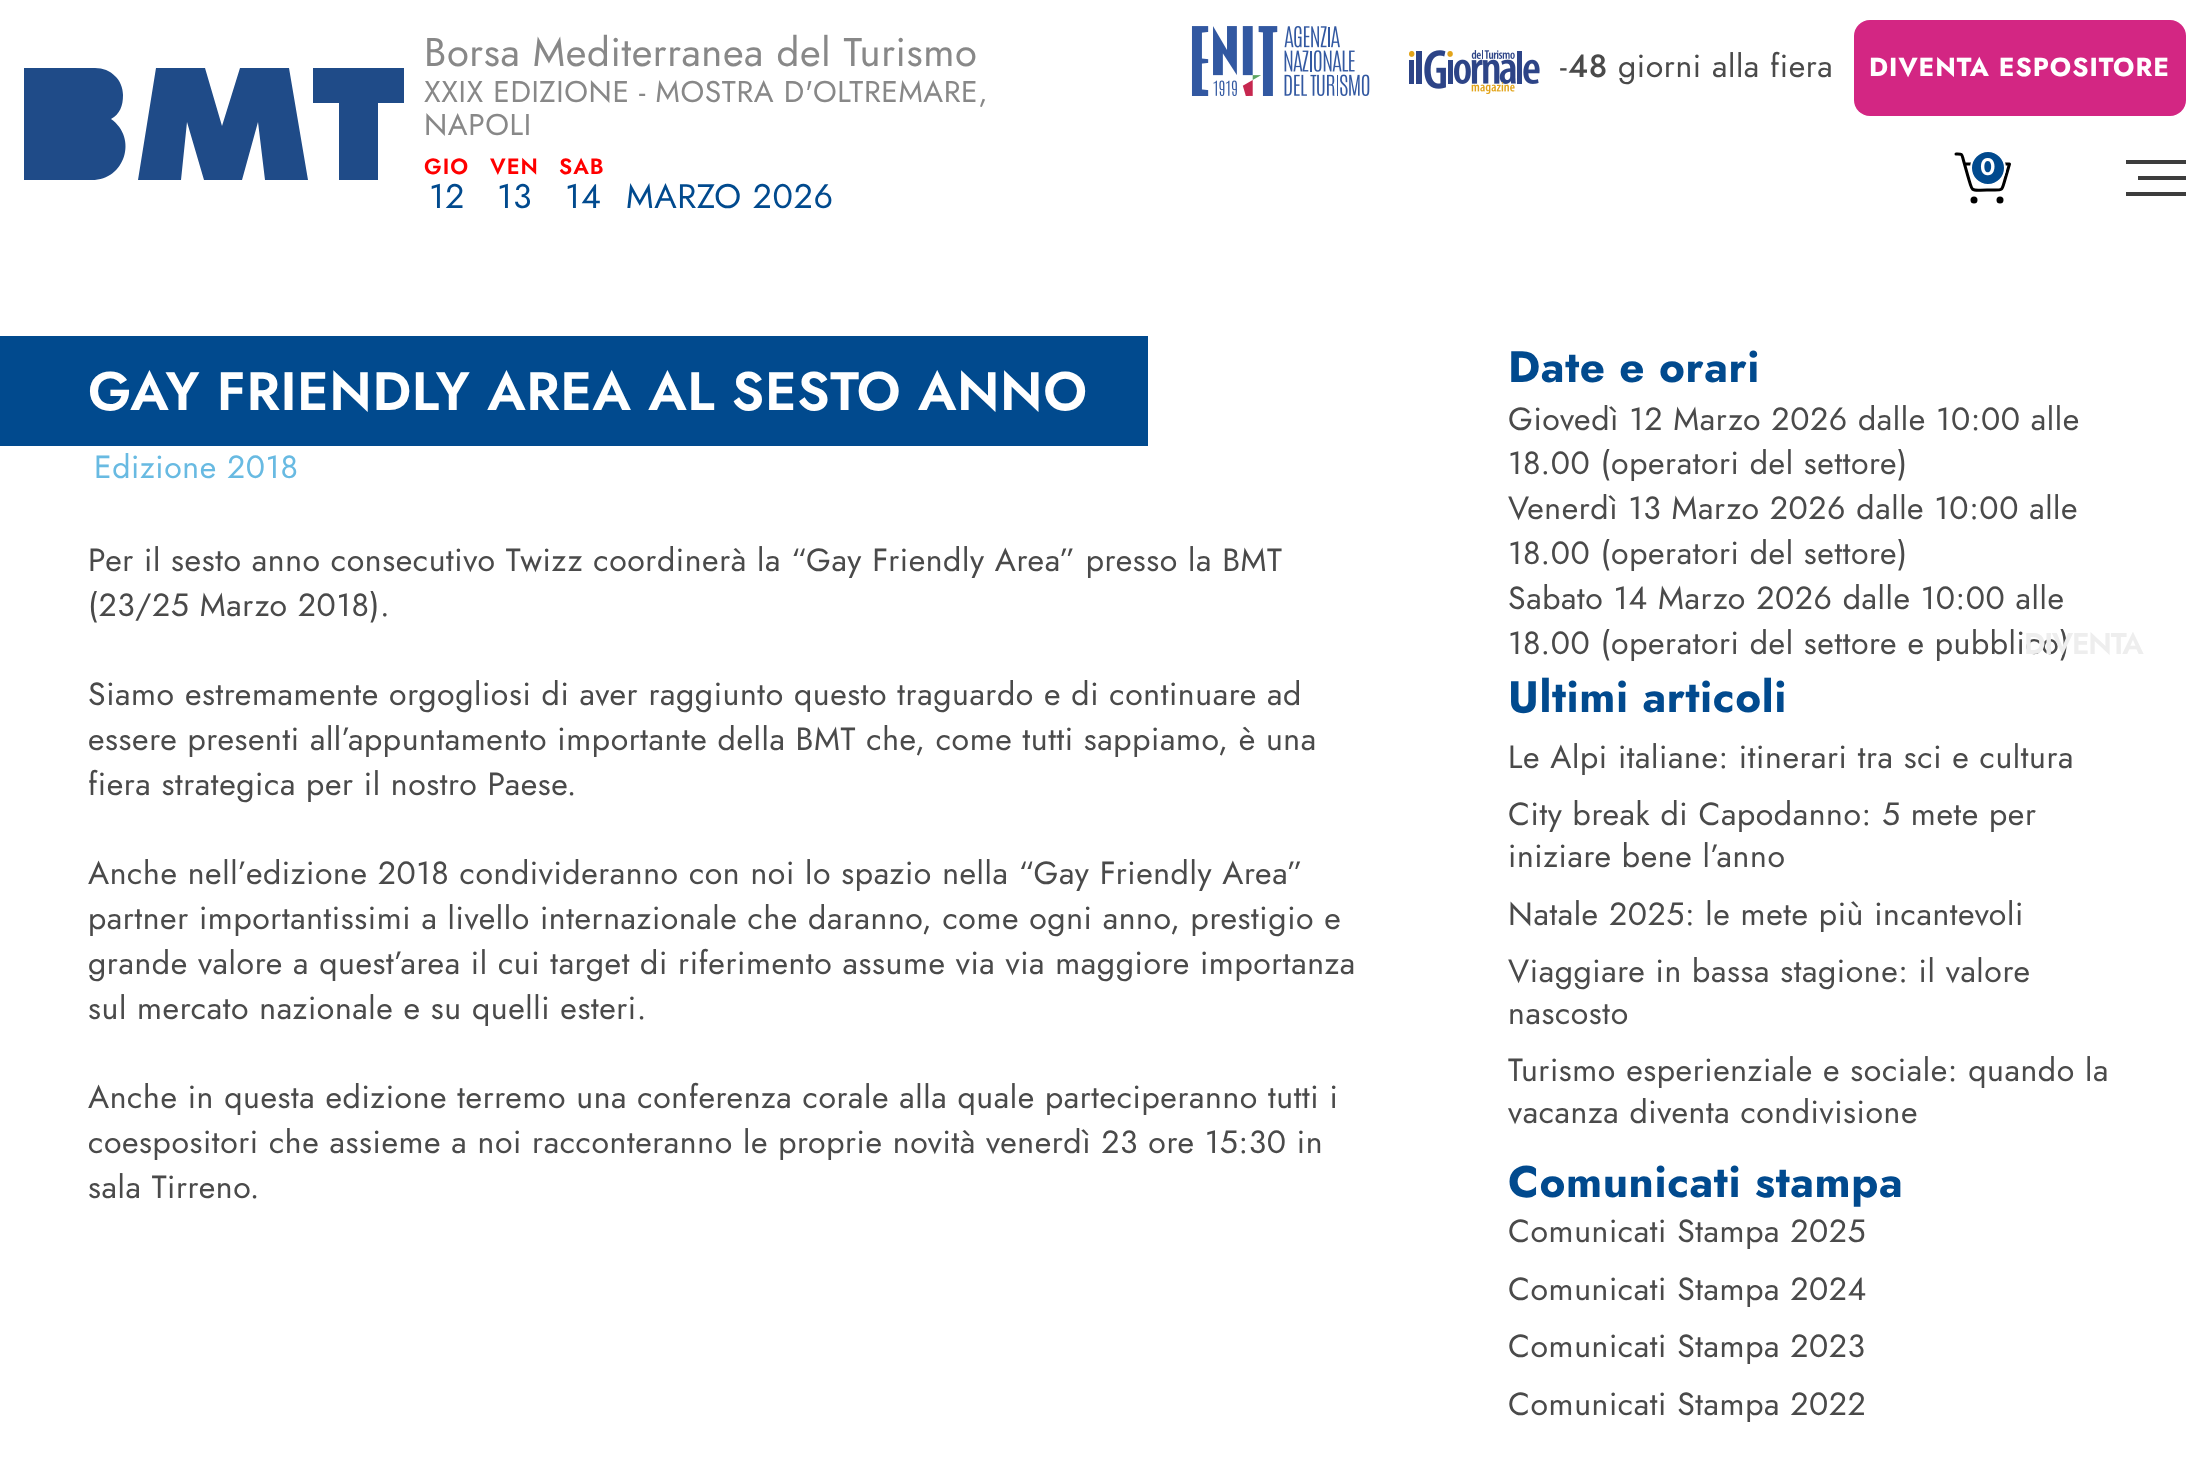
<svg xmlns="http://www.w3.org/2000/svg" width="2210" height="1463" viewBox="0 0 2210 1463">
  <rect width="100%" height="100%" fill="rgb(255,255,255)"/>
  <path d="M111 119C120 114 123 106 123 95C123 80 111 68 95 68H24V180H92C125 180 138 138 111 119Z" fill="rgb(31,75,136)"/>
  <path d="M240 68L222 126L205 68H156L138 180H181L187 122L204 180H242L258 122L265 180H308L289 68Z" fill="rgb(31,75,136)"/>
  <path d="M313 68V103H339V180H378V103H404V68Z" fill="rgb(31,75,136)"/>
  <text x="424" y="66" font-family="Jost" font-size="40" letter-spacing="0.6" fill="rgb(136,136,136)">Borsa Mediterranea del Turismo</text>
  <g font-family="Jost" font-size="30" letter-spacing="0.6" fill="rgb(136,136,136)">
    <text>
      <tspan x="424" y="102">XXIX EDIZIONE - MOSTRA D'OLTREMARE,</tspan>
      <tspan x="424" y="135">NAPOLI</tspan>
    </text>
  </g>
  <text x="424" y="174" font-family="Jost" font-size="22" font-weight="600" letter-spacing="1" fill="rgb(255,0,0)">GIO</text>
  <text x="429" y="208" font-family="Jost" font-size="34" letter-spacing="0.6" fill="rgb(1,74,142)">12</text>
  <text x="490" y="174" font-family="Jost" font-size="22" font-weight="600" letter-spacing="1" fill="rgb(255,0,0)">VEN</text>
  <text x="497" y="208" font-family="Jost" font-size="34" letter-spacing="0.6" fill="rgb(1,74,142)">13</text>
  <text x="559" y="174" font-family="Jost" font-size="22" font-weight="600" letter-spacing="1" fill="rgb(255,0,0)">SAB</text>
  <g font-family="Jost" font-size="34" letter-spacing="0.6" fill="rgb(1,74,142)">
    <text x="565" y="208">14</text>
    <text x="626" y="208">MARZO 2026</text>
  </g>
  <image x="1191" y="26" width="179" height="70" href="pic1.png"/>
  <image x="1409" y="50" width="131" height="44" href="pic2.png"/>
  <text x="1560" y="77" font-family="Jost" font-size="32" letter-spacing="0.6" fill="rgb(74,74,74)">-</text>
  <text x="1568" y="77" font-family="Jost" font-size="32" font-weight="500" letter-spacing="0.6" fill="rgb(74,74,74)">48</text>
  <text x="1618" y="77" font-family="Jost" font-size="32" letter-spacing="0.6" fill="rgb(74,74,74)">giorni alla fiera</text>
  <rect x="1854" y="20" width="332" height="96" rx="16" fill="rgb(211,38,131)"/>
  <text x="1869" y="76" font-family="Jost" font-size="26" font-weight="bold" letter-spacing="1" fill="rgb(255,255,255)">DIVENTA ESPOSITORE</text>
  <circle cx="1974" cy="200" r="3.5" fill="rgb(0,0,0)"/>
  <circle cx="2000" cy="200" r="3.5" fill="rgb(0,0,0)"/>
  <path d="M1964.5 164H2009.5L2004 183C2002 190 2002 190 1995 190H1987C1970 190 1973 193 1968 176.5L1963.5 160.5C1961.5 153.5 1963 154 1956 154" fill="none" stroke="rgb(0,0,0)" stroke-width="3" stroke-linecap="round" stroke-linejoin="round"/>
  <circle cx="1988" cy="168" r="17" fill="rgb(1,74,142)" stroke="rgb(255,255,255)" stroke-width="2"/>
  <text x="1980" y="175" font-family="Jost" font-size="24" font-weight="600" letter-spacing="0.6" fill="rgb(255,255,255)">0</text>
  <rect x="2126" y="160" width="60" height="4" fill="rgb(61,61,61)"/>
  <rect x="2138" y="176" width="48" height="4" fill="rgb(61,61,61)"/>
  <rect x="2126" y="192" width="60" height="4" fill="rgb(61,61,61)"/>
  <rect x="0" y="336" width="1148" height="110" fill="rgb(1,74,142)"/>
  <text x="88" y="410" font-family="Jost" font-size="54" font-weight="600" letter-spacing="0.6" fill="rgb(255,255,255)">GAY FRIENDLY AREA AL SESTO ANNO</text>
  <text x="94" y="478" font-family="Jost" font-size="32" letter-spacing="0.6" fill="rgb(104,186,226)">Edizione 2018</text>
  <g font-family="Jost" font-size="32" letter-spacing="0.6" fill="rgb(74,74,74)">
    <text>
      <tspan x="88" y="571">Per il sesto anno consecutivo Twizz coordinerà la “Gay Friendly Area” presso la BMT</tspan>
      <tspan x="88" y="616">(23/25 Marzo 2018).</tspan>
    </text>
    <text>
      <tspan x="88" y="705">Siamo estremamente orgogliosi di aver raggiunto questo traguardo e di continuare ad</tspan>
      <tspan x="88" y="750">essere presenti all’appuntamento importante della BMT che, come tutti sappiamo, è una</tspan>
      <tspan x="88" y="795">fiera strategica per il nostro Paese.</tspan>
    </text>
    <text>
      <tspan x="88" y="884">Anche nell’edizione 2018 condivideranno con noi lo spazio nella “Gay Friendly Area”</tspan>
      <tspan x="88" y="929">partner importantissimi a livello internazionale che daranno, come ogni anno, prestigio e</tspan>
      <tspan x="88" y="974">grande valore a quest’area il cui target di riferimento assume via via maggiore importanza</tspan>
      <tspan x="88" y="1019">sul mercato nazionale e su quelli esteri.</tspan>
    </text>
    <text>
      <tspan x="88" y="1108">Anche in questa edizione terremo una conferenza corale alla quale parteciperanno tutti i</tspan>
      <tspan x="88" y="1153">coespositori che assieme a noi racconteranno le proprie novità venerdì 23 ore 15:30 in</tspan>
      <tspan x="88" y="1198">sala Tirreno.</tspan>
    </text>
  </g>
  <text x="1508" y="382" font-family="Jost" font-size="44" font-weight="bold" letter-spacing="0.6" fill="rgb(1,74,142)">Date e orari</text>
  <g font-family="Jost" font-size="32" letter-spacing="0.6" fill="rgb(74,74,74)">
    <text>
      <tspan x="1508" y="430">Giovedì 12 Marzo 2026 dalle 10:00 alle</tspan>
      <tspan x="1508" y="474">18.00 (operatori del settore)</tspan>
      <tspan x="1508" y="519">Venerdì 13 Marzo 2026 dalle 10:00 alle</tspan>
      <tspan x="1508" y="564">18.00 (operatori del settore)</tspan>
      <tspan x="1508" y="609">Sabato 14 Marzo 2026 dalle 10:00 alle</tspan>
      <tspan x="1508" y="654">18.00 (operatori del settore e pubblico)</tspan>
    </text>
  </g>
  <text x="1508" y="712" font-family="Jost" font-size="44" font-weight="bold" letter-spacing="0.6" fill="rgb(1,74,142)">Ultimi articoli</text>
  <g font-family="Jost" font-size="32" letter-spacing="0.6" fill="rgb(74,74,74)">
    <text>
      <tspan x="1508" y="768">Le Alpi italiane: itinerari tra sci e cultura</tspan>
      <tspan x="1508" y="825">City break di Capodanno: 5 mete per</tspan>
      <tspan x="1508" y="867">iniziare bene l’anno</tspan>
      <tspan x="1508" y="925">Natale 2025: le mete più incantevoli</tspan>
      <tspan x="1508" y="982">Viaggiare in bassa stagione: il valore</tspan>
      <tspan x="1508" y="1024">nascosto</tspan>
      <tspan x="1508" y="1081">Turismo esperienziale e sociale: quando la</tspan>
      <tspan x="1508" y="1123">vacanza diventa condivisione</tspan>
    </text>
  </g>
  <text x="1508" y="1197" font-family="Jost" font-size="44" font-weight="bold" letter-spacing="0.6" fill="rgb(1,74,142)">Comunicati stampa</text>
  <g font-family="Jost" font-size="32" letter-spacing="0.6" fill="rgb(74,74,74)">
    <text>
      <tspan x="1508" y="1242">Comunicati Stampa 2025</tspan>
      <tspan x="1508" y="1300">Comunicati Stampa 2024</tspan>
      <tspan x="1508" y="1357">Comunicati Stampa 2023</tspan>
      <tspan x="1508" y="1415">Comunicati Stampa 2022</tspan>
    </text>
  </g>
  <text x="2024" y="654" font-family="Jost" font-size="30" font-weight="600" letter-spacing="-1.25" fill="rgb(238,238,238)">DIVENTA</text>
</svg>
